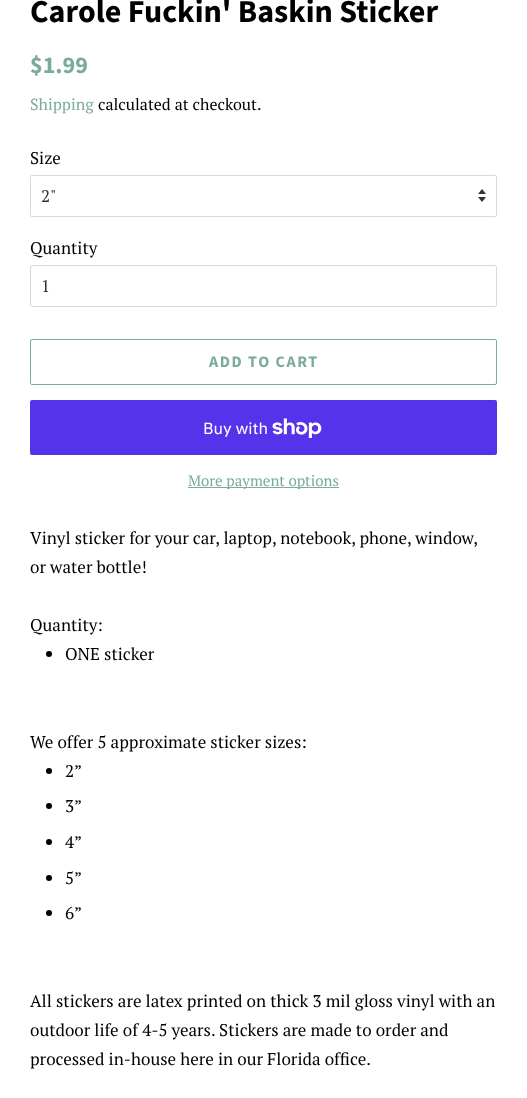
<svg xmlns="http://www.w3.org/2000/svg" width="527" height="1098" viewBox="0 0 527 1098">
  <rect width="100%" height="100%" fill="rgb(255,255,255)"/>
  <text x="30" y="22" font-family="Source Sans Pro" font-size="32" font-weight="bold" fill="rgb(0,0,0)">Carole Fuckin' Baskin Sticker</text>
  <text x="30" y="73" font-family="Source Sans Pro" font-size="24" font-weight="bold" fill="rgb(122,171,158)">$1.99</text>
  <text x="30" y="110" font-family="PT Serif" font-size="16" fill="rgb(122,171,158)">Shipping</text>
  <text x="98" y="110" font-family="PT Serif" font-size="16" fill="rgb(0,0,0)">calculated at checkout.</text>
  <text x="30" y="164" font-family="PT Serif" font-size="17" fill="rgb(0,0,0)">Size</text>
  <image x="478" y="189" width="8" height="13" href="pic1.png"/>
  <rect x="30.5" y="175.5" width="466" height="41" rx="1.5" fill="none" stroke="rgb(217,217,217)"/>
  <text x="41" y="202" font-family="PT Serif" font-size="17" fill="rgb(51,51,51)">2"</text>
  <text x="30" y="254" font-family="PT Serif" font-size="17" fill="rgb(0,0,0)">Quantity</text>
  <rect x="30.5" y="265.5" width="466" height="41" rx="1.5" fill="none" stroke="rgb(217,217,217)"/>
  <text x="41" y="292" font-family="PT Serif" font-size="17" fill="rgb(51,51,51)">1</text>
  <rect x="30.5" y="339.5" width="466" height="45" rx="1.5" fill="none" stroke="rgb(122,171,158)"/>
  <text x="209" y="367" font-family="Source Sans Pro" font-size="16" font-weight="bold" letter-spacing="1.6" fill="rgb(122,171,158)">ADD TO CART</text>
  <rect x="30" y="400" width="467" height="55" rx="2" fill="rgb(84,51,235)"/>
  <text x="203" y="434" font-family="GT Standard" font-size="16" fill="rgb(255,255,255)">Buy with</text>
  <image x="272" y="418" width="50" height="20" href="pic2.png"/>
  <rect x="188" y="487" width="151" height="1" fill="rgb(122,171,158)"/>
  <text x="188" y="486" font-family="PT Serif" font-size="15" fill="rgb(122,171,158)">More payment options</text>
  <g font-family="PT Serif" font-size="17" fill="rgb(0,0,0)">
    <text>
      <tspan x="30" y="544">Vinyl sticker for your car, laptop, notebook, phone, window,</tspan>
      <tspan x="30" y="573">or water bottle!</tspan>
    </text>
    <text x="30" y="631">Quantity:</text>
  </g>
  <circle cx="49" cy="654" r="3" fill="rgb(0,0,0)"/>
  <g font-family="PT Serif" font-size="17" fill="rgb(0,0,0)">
    <text x="65" y="660">ONE sticker</text>
    <text x="30" y="748">We offer 5 approximate sticker sizes:</text>
  </g>
  <circle cx="49" cy="771" r="3" fill="rgb(0,0,0)"/>
  <text x="65" y="777" font-family="PT Serif" font-size="17" fill="rgb(0,0,0)">2”</text>
  <circle cx="49" cy="806" r="3" fill="rgb(0,0,0)"/>
  <text x="65" y="812" font-family="PT Serif" font-size="17" fill="rgb(0,0,0)">3”</text>
  <circle cx="49" cy="842" r="3" fill="rgb(0,0,0)"/>
  <text x="65" y="848" font-family="PT Serif" font-size="17" fill="rgb(0,0,0)">4”</text>
  <circle cx="49" cy="878" r="3" fill="rgb(0,0,0)"/>
  <text x="65" y="884" font-family="PT Serif" font-size="17" fill="rgb(0,0,0)">5”</text>
  <circle cx="49" cy="913" r="3" fill="rgb(0,0,0)"/>
  <g font-family="PT Serif" font-size="17" fill="rgb(0,0,0)">
    <text x="65" y="919">6”</text>
    <text>
      <tspan x="30" y="1007">All stickers are latex printed on thick 3 mil gloss vinyl with an</tspan>
      <tspan x="30" y="1036">outdoor life of 4-5 years. Stickers are made to order and</tspan>
      <tspan x="30" y="1065">processed in-house here in our Florida office.</tspan>
    </text>
  </g>
</svg>
